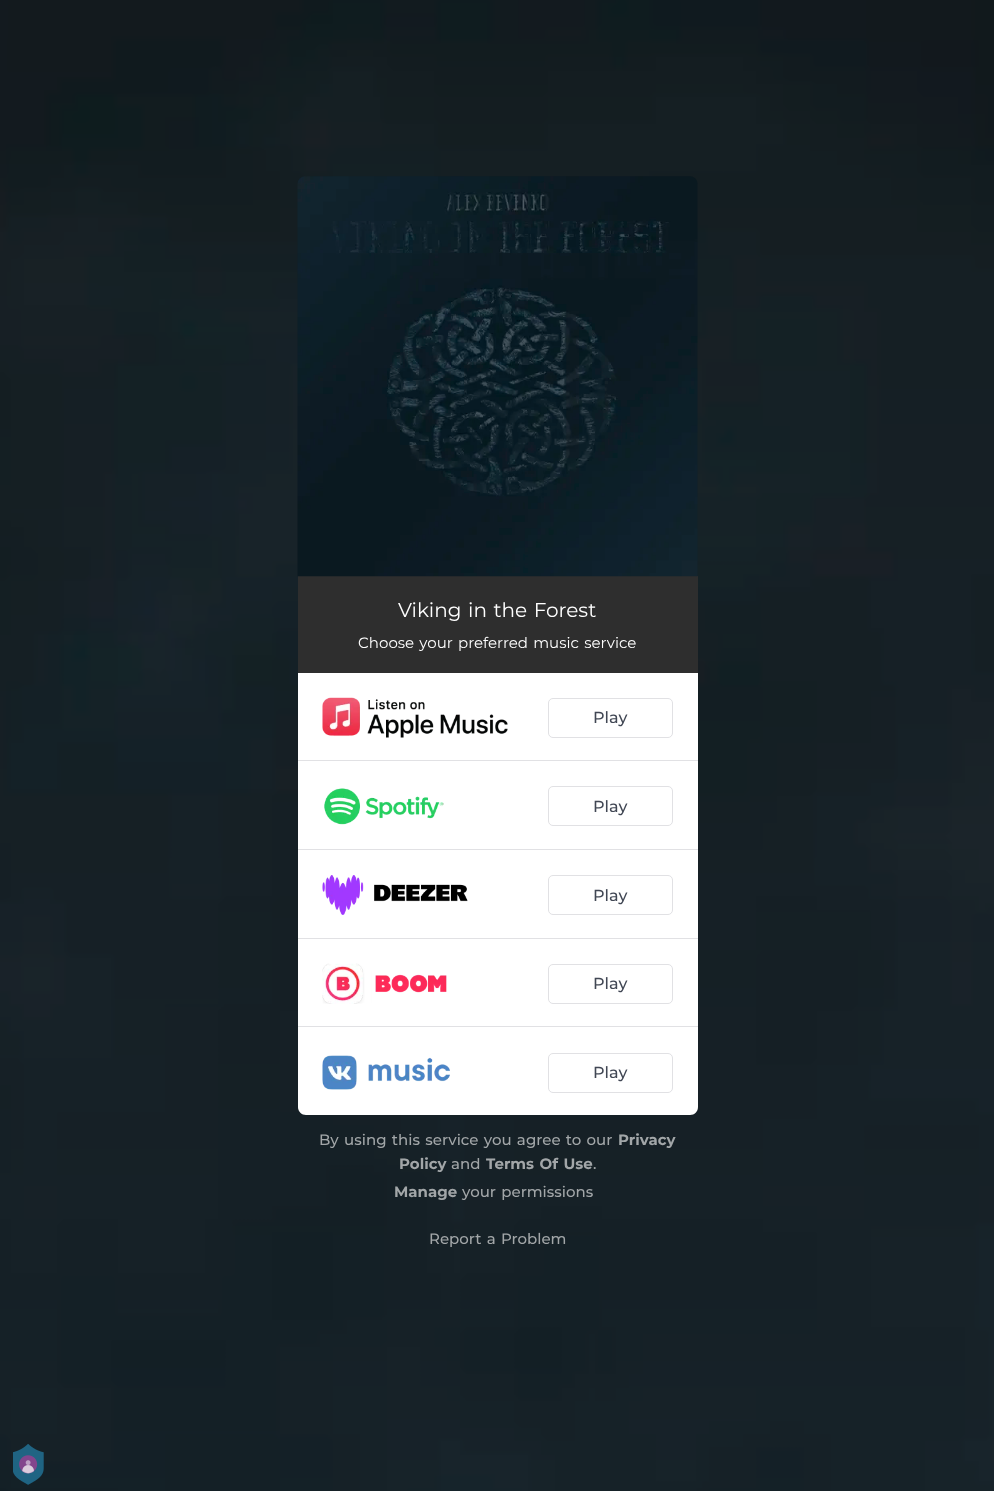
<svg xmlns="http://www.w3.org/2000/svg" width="994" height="1491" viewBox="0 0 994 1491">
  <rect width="100%" height="100%" fill="rgb(255,255,255)"/>
  <image x="0" y="0" width="994" height="1491" href="pic1.png"/>
  <rect x="298" y="576" width="400" height="97" fill="rgb(46,46,46)"/>
  <image x="297" y="176" width="401" height="401" href="pic2.png"/>
  <text x="398" y="617" word-spacing="1.25" font-family="Montserrat" font-size="20" fill="rgb(255,255,255)">Viking in the Forest</text>
  <text x="358" y="648" word-spacing="1.25" font-family="Montserrat" font-size="15" fill="rgb(255,255,255)">Choose your preferred music service</text>
  <path d="M298 673H698V1107C698 1111.5 694.5 1115 690 1115H306C301.5 1115 298 1111.5 298 1107Z" fill="rgb(255,255,255)"/>
  <rect x="298" y="760" width="400" height="1" fill="rgb(225,225,228)"/>
  <image x="322" y="697" width="186" height="41" href="pic3.png"/>
  <rect x="548.5" y="698.5" width="124" height="39" rx="4.5" fill="none" stroke="rgb(225,225,228)"/>
  <text x="593" y="723" font-family="Montserrat" font-size="16" font-weight="500" fill="rgb(65,71,84)">Play</text>
  <rect x="298" y="849" width="400" height="1" fill="rgb(225,225,228)"/>
  <image x="324" y="788" width="120" height="37" href="pic4.png"/>
  <rect x="548.5" y="786.5" width="124" height="39" rx="4.5" fill="none" stroke="rgb(225,225,228)"/>
  <text x="593" y="812" font-family="Montserrat" font-size="16" font-weight="500" fill="rgb(65,71,84)">Play</text>
  <rect x="298" y="938" width="400" height="1" fill="rgb(225,225,228)"/>
  <image x="322" y="875" width="146" height="40" href="pic5.png"/>
  <rect x="548.5" y="875.5" width="124" height="39" rx="4.5" fill="none" stroke="rgb(225,225,228)"/>
  <text x="593" y="901" font-family="Montserrat" font-size="16" font-weight="500" fill="rgb(65,71,84)">Play</text>
  <rect x="298" y="1026" width="400" height="1" fill="rgb(225,225,228)"/>
  <image x="322" y="963" width="125" height="41" href="pic6.png"/>
  <rect x="548.5" y="964.5" width="124" height="39" rx="4.5" fill="none" stroke="rgb(225,225,228)"/>
  <text x="593" y="989" font-family="Montserrat" font-size="16" font-weight="500" fill="rgb(65,71,84)">Play</text>
  <image x="322" y="1055" width="128" height="35" href="pic7.png"/>
  <rect x="548.5" y="1053.5" width="124" height="39" rx="4.5" fill="none" stroke="rgb(225,225,228)"/>
  <text x="593" y="1078" font-family="Montserrat" font-size="16" font-weight="500" fill="rgb(65,71,84)">Play</text>
  <text x="319" y="1145" word-spacing="1.25" font-family="Montserrat" font-size="15" font-weight="500" fill="rgb(162,166,168)">By using this service you agree to our</text>
  <g font-family="Montserrat" font-size="15" font-weight="bold" fill="rgb(162,166,168)">
    <text x="618" y="1145">Privacy</text>
    <text x="399" y="1169">Policy</text>
  </g>
  <text x="451" y="1169" font-family="Montserrat" font-size="15" font-weight="500" fill="rgb(162,166,168)">and</text>
  <text x="486" y="1169" word-spacing="1.25" font-family="Montserrat" font-size="15" font-weight="bold" fill="rgb(162,166,168)">Terms Of Use</text>
  <text x="593" y="1169" font-family="Montserrat" font-size="15" font-weight="500" fill="rgb(162,166,168)">.</text>
  <text x="394" y="1197" font-family="Montserrat" font-size="15" font-weight="bold" fill="rgb(162,166,168)">Manage</text>
  <g font-family="Montserrat" font-size="15" font-weight="500" fill="rgb(162,166,168)">
    <text x="462" y="1197" word-spacing="1.25">your permissions</text>
    <text x="429" y="1244" word-spacing="1.25">Report a Problem</text>
  </g>
  <image x="13" y="1444" width="31" height="41" href="pic8.png"/>
</svg>
